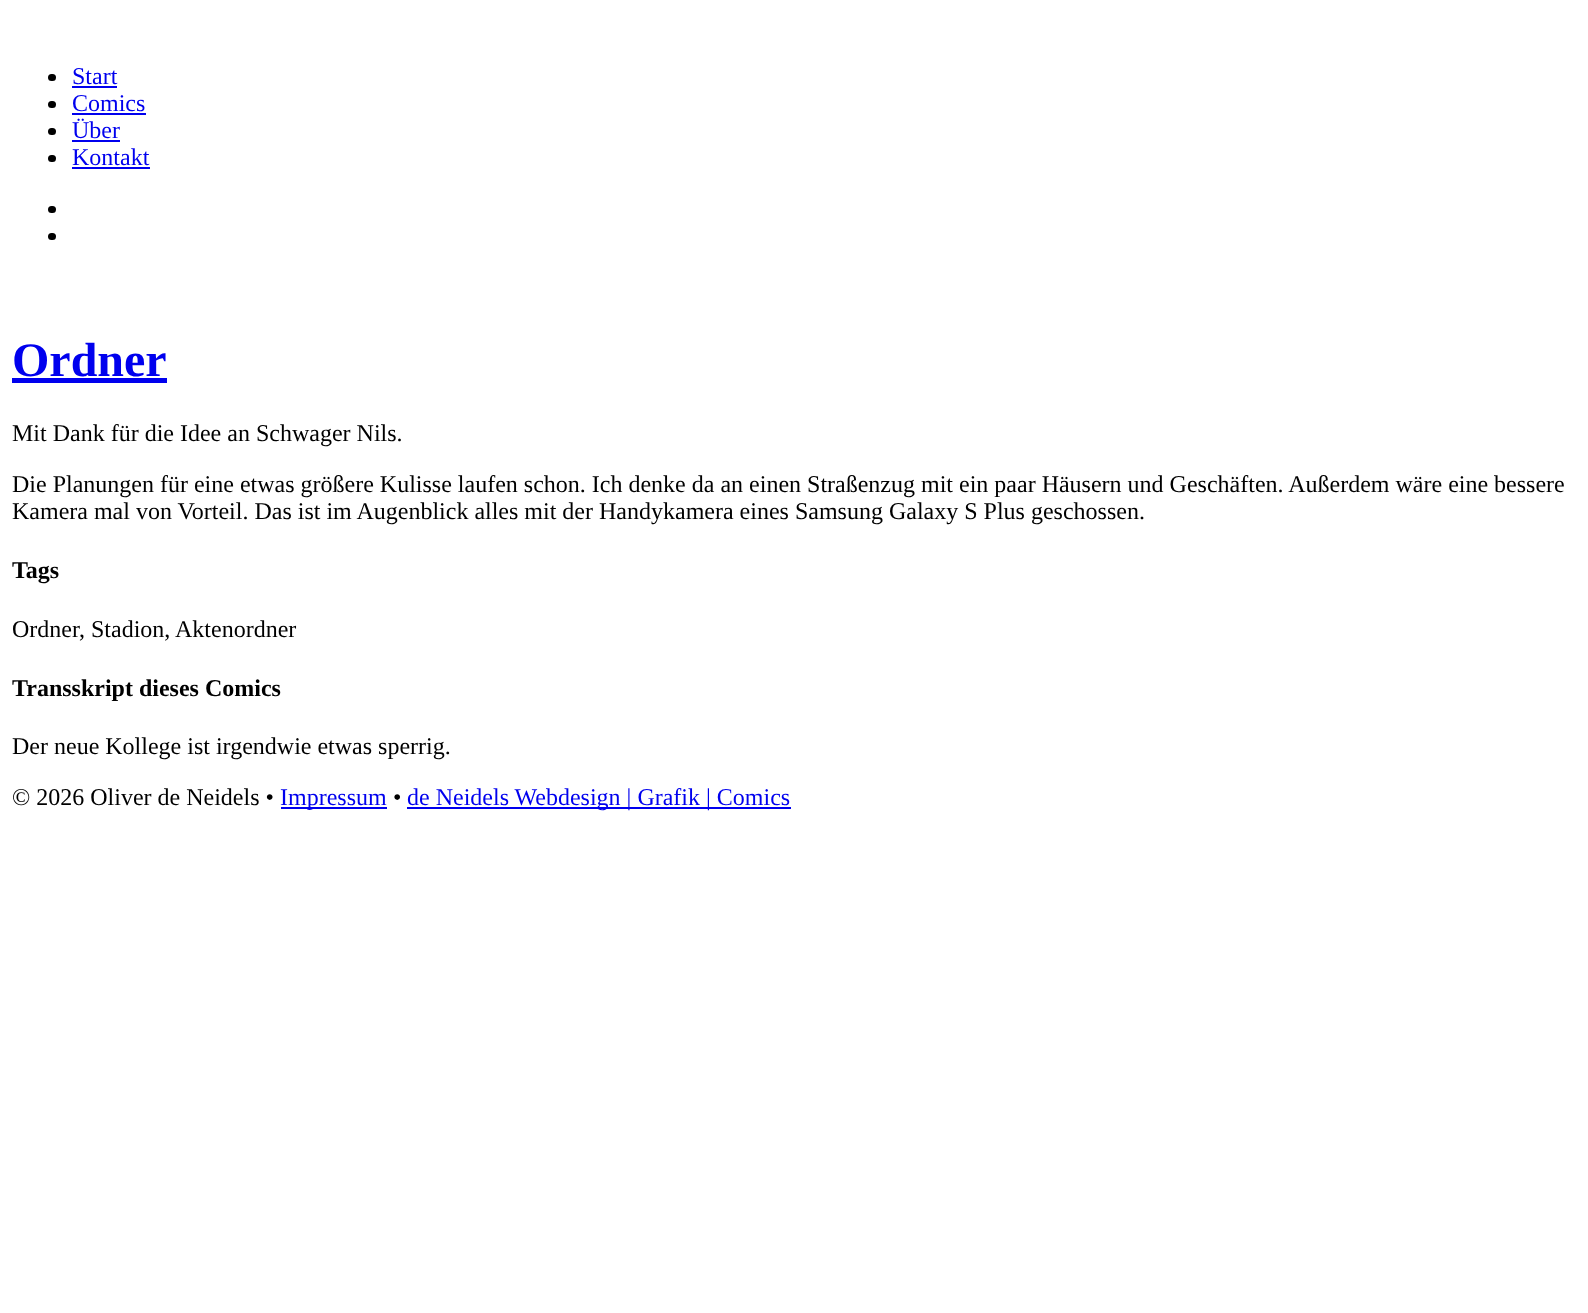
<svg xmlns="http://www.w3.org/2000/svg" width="1588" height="1313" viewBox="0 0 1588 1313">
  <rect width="100%" height="100%" fill="rgb(255,255,255)"/>
  <rect x="48" y="74" width="8" height="7" rx="3.5" fill="rgb(0,0,0)"/>
  <text x="72" y="84" font-family="Liberation Serif" font-size="24" fill="rgb(0,0,238)">Start</text>
  <rect x="72" y="86" width="45" height="2" fill="rgb(0,0,238)"/>
  <rect x="48" y="101" width="8" height="7" rx="3.5" fill="rgb(0,0,0)"/>
  <text x="72" y="111" font-family="Liberation Serif" font-size="24" fill="rgb(0,0,238)">Comics</text>
  <rect x="72" y="113" width="74" height="2" fill="rgb(0,0,238)"/>
  <rect x="48" y="128" width="8" height="7" rx="3.5" fill="rgb(0,0,0)"/>
  <text x="72" y="138" font-family="Liberation Serif" font-size="24" fill="rgb(0,0,238)">Über</text>
  <rect x="72" y="140" width="48" height="2" fill="rgb(0,0,238)"/>
  <rect x="48" y="155" width="8" height="7" rx="3.5" fill="rgb(0,0,0)"/>
  <text x="72" y="165" font-family="Liberation Serif" font-size="24" fill="rgb(0,0,238)">Kontakt</text>
  <rect x="72" y="167" width="78" height="2" fill="rgb(0,0,238)"/>
  <rect x="48" y="206" width="8" height="7" rx="3.5" fill="rgb(0,0,0)"/>
  <rect x="48" y="233" width="8" height="7" rx="3.5" fill="rgb(0,0,0)"/>
  <text x="12" y="376" font-family="Liberation Serif" font-size="48" font-weight="bold" fill="rgb(0,0,238)">Ordner</text>
  <rect x="12" y="378" width="155" height="5" fill="rgb(0,0,238)"/>
  <g font-family="Liberation Serif" font-size="24" fill="rgb(0,0,0)">
    <text x="12" y="441">Mit Dank für die Idee an Schwager Nils.</text>
    <text>
      <tspan x="12" y="492">Die Planungen für eine etwas größere Kulisse laufen schon. Ich denke da an einen Straßenzug mit ein paar Häusern und Geschäften. Außerdem wäre eine bessere</tspan>
      <tspan x="12" y="519">Kamera mal von Vorteil. Das ist im Augenblick alles mit der Handykamera eines Samsung Galaxy S Plus geschossen.</tspan>
    </text>
  </g>
  <text x="12" y="578" font-family="Liberation Serif" font-size="24" font-weight="bold" fill="rgb(0,0,0)">Tags</text>
  <text x="12" y="637" font-family="Liberation Serif" font-size="24" fill="rgb(0,0,0)">Ordner, Stadion, Aktenordner</text>
  <text x="12" y="696" font-family="Liberation Serif" font-size="24" font-weight="bold" fill="rgb(0,0,0)">Transskript dieses Comics</text>
  <g font-family="Liberation Serif" font-size="24" fill="rgb(0,0,0)">
    <text x="12" y="754">Der neue Kollege ist irgendwie etwas sperrig.</text>
    <text x="12" y="805">© 2026 Oliver de Neidels •</text>
  </g>
  <rect x="281" y="807" width="106" height="2" fill="rgb(0,0,238)"/>
  <text x="280" y="805" font-family="Liberation Serif" font-size="24" fill="rgb(0,0,238)">Impressum</text>
  <text x="393" y="805" font-family="Liberation Serif" font-size="24" fill="rgb(0,0,0)">•</text>
  <rect x="407" y="807" width="384" height="2" fill="rgb(0,0,238)"/>
  <text x="407" y="805" font-family="Liberation Serif" font-size="24" fill="rgb(0,0,238)">de Neidels Webdesign | Grafik | Comics</text>
</svg>
